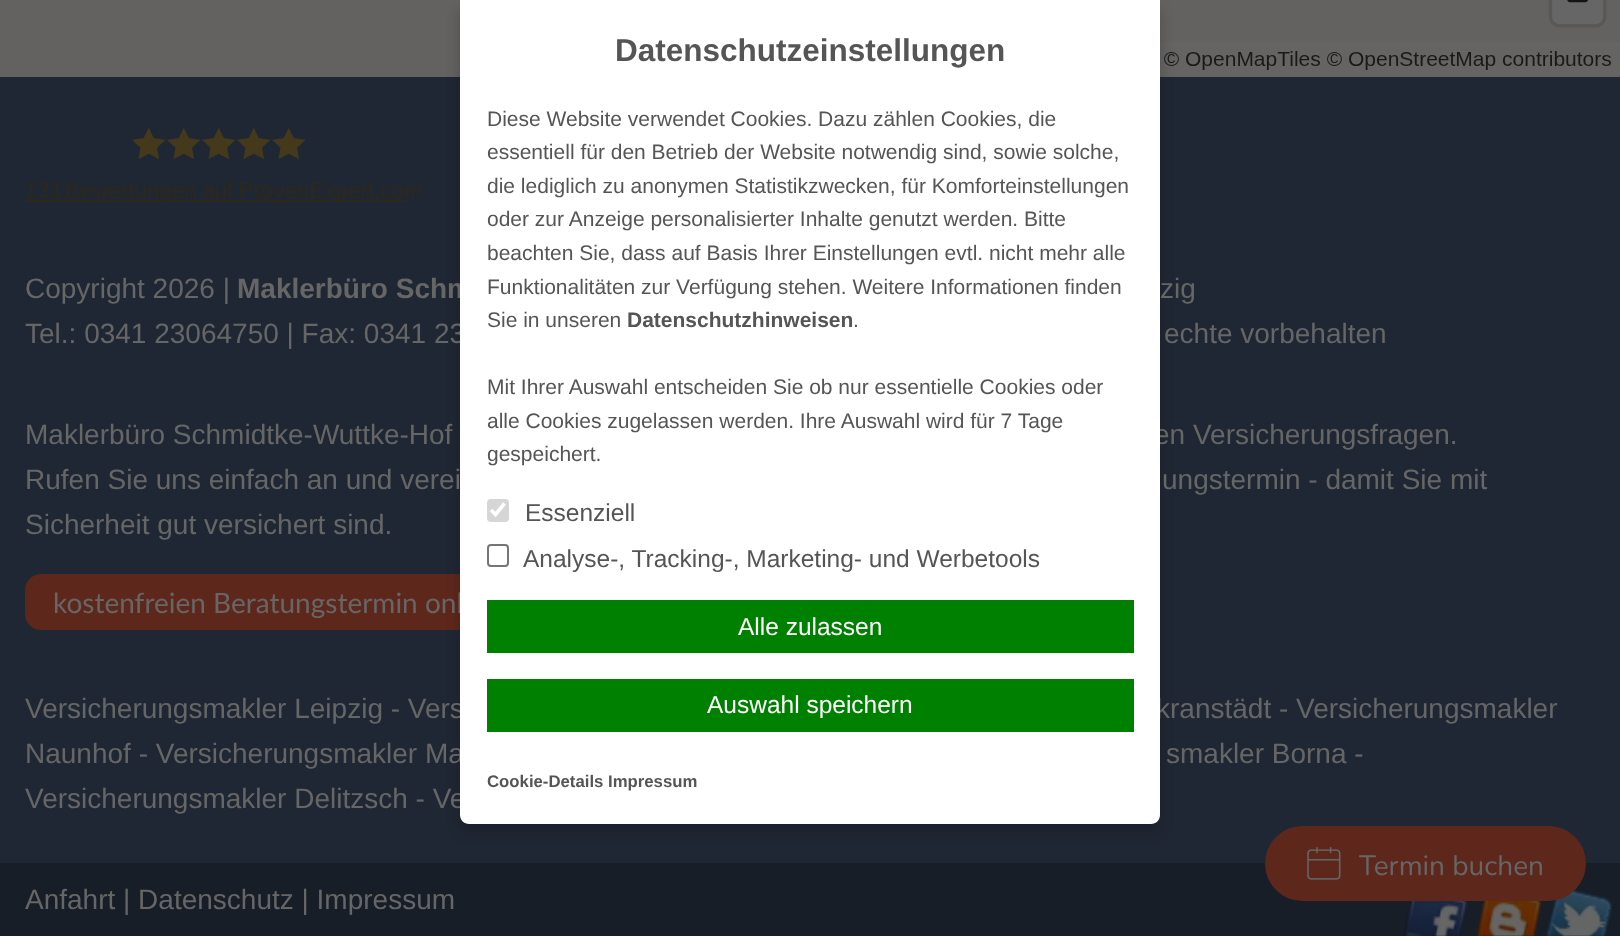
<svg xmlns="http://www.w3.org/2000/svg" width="1620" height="936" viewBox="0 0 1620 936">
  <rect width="100%" height="100%" fill="rgb(32,39,52)"/>
  <image x="0" y="0" width="1620" height="77" href="pic1.png"/>
  <rect x="25" y="574" width="600" height="56" rx="16" fill="rgb(94,39,28)"/>
  <rect x="460" y="7" width="700" height="824" rx="9" fill="rgba(0,0,0,0.2)" filter="blur(7px)"/>
  <text x="237" y="298" font-family="Liberation Sans" font-size="28" font-weight="bold" fill="rgb(102,102,102)">Maklerbüro Schm</text>
  <g font-family="Liberation Sans" font-size="28" fill="rgb(102,102,102)">
    <text x="25" y="343">Tel.: 0341 23064750 | Fax: 0341 23</text>
    <text x="1154" y="444">en Versicherungsfragen.</text>
  </g>
  <text x="53" y="613" font-family="Lato" font-size="28" fill="rgb(102,102,102)">kostenfreien Beratungstermin onl</text>
  <g font-family="Liberation Sans" font-size="28" fill="rgb(102,102,102)">
    <text x="25" y="718">Versicherungsmakler Leipzig - Vers</text>
    <text x="1156" y="718">kranstädt - Versicherungsmakler</text>
    <text>
      <tspan x="25" y="763">Naunhof - Versicherungsmakler Ma</tspan>
      <tspan x="25" y="808">Versicherungsmakler Delitzsch - Ve</tspan>
    </text>
  </g>
  <path d="M460 0H1160V815C1160 820 1156 824 1151 824H469C464 824 460 820 460 815Z" fill="rgb(255,255,255)"/>
  <text x="615" y="61" font-family="Liberation Sans" font-size="31.5" font-weight="bold" fill="rgb(85,85,85)">Datenschutzeinstellungen</text>
  <g font-family="Liberation Sans" font-size="21" fill="rgb(85,85,85)">
    <text>
      <tspan x="487" y="126">Diese Website verwendet Cookies. Dazu zählen Cookies, die</tspan>
      <tspan x="487" y="159">essentiell für den Betrieb der Website notwendig sind, sowie solche,</tspan>
      <tspan x="487" y="193">die lediglich zu anonymen Statistikzwecken, für Komforteinstellungen</tspan>
      <tspan x="487" y="226">oder zur Anzeige personalisierter Inhalte genutzt werden. Bitte</tspan>
      <tspan x="487" y="260">beachten Sie, dass auf Basis Ihrer Einstellungen evtl. nicht mehr alle</tspan>
      <tspan x="487" y="294">Funktionalitäten zur Verfügung stehen. Weitere Informationen finden</tspan>
      <tspan x="487" y="327">Sie in unseren</tspan>
    </text>
  </g>
  <text x="627" y="327" font-family="Liberation Sans" font-size="21" font-weight="bold" fill="rgb(85,85,85)">Datenschutzhinweisen</text>
  <g font-family="Liberation Sans" font-size="21" fill="rgb(85,85,85)">
    <text x="853" y="327">.</text>
    <text>
      <tspan x="487" y="394">Mit Ihrer Auswahl entscheiden Sie ob nur essentielle Cookies oder</tspan>
      <tspan x="487" y="428">alle Cookies zugelassen werden. Ihre Auswahl wird für 7 Tage</tspan>
      <tspan x="487" y="461">gespeichert.</tspan>
    </text>
  </g>
  <rect x="487" y="499" width="22" height="23" rx="4" fill="rgb(214,214,214)"/>
  <path d="M491 510L495.5 514.5L504.5 503.5" fill="none" stroke="rgb(255,255,255)" stroke-width="3.6"/>
  <text x="525" y="521" font-family="Liberation Sans" font-size="24.5" fill="rgb(85,85,85)">Essenziell</text>
  <rect x="488" y="545" width="20" height="21" rx="3" fill="none" stroke="rgb(118,118,118)" stroke-width="2"/>
  <text x="523" y="567" font-family="Liberation Sans" font-size="24.5" fill="rgb(85,85,85)">Analyse-, Tracking-, Marketing- und Werbetools</text>
  <rect x="487" y="600" width="647" height="53" fill="rgb(0,128,0)"/>
  <text x="738" y="635" font-family="Liberation Sans" font-size="24.5" fill="rgb(255,255,255)">Alle zulassen</text>
  <rect x="487" y="679" width="647" height="53" fill="rgb(0,128,0)"/>
  <text x="707" y="713" font-family="Liberation Sans" font-size="24.5" fill="rgb(255,255,255)">Auswahl speichern</text>
  <text x="487" y="787" font-family="Liberation Sans" font-size="16.75" font-weight="bold" fill="rgb(85,85,85)">Cookie-Details Impressum</text>
  <image x="132" y="128" width="34" height="31" href="pic2.png"/>
  <image x="167" y="128" width="34" height="31" href="pic2.png"/>
  <image x="202" y="128" width="34" height="31" href="pic2.png"/>
  <image x="237" y="128" width="34" height="31" href="pic2.png"/>
  <image x="272" y="128" width="34" height="31" href="pic2.png"/>
  <text x="25" y="198" font-family="Liberation Sans" font-size="22.4" fill="rgb(46,40,26)">131</text>
  <rect x="25" y="200" width="381" height="2" fill="rgb(46,40,26)"/>
  <text x="65" y="198" word-spacing="-1" font-family="Liberation Sans" font-size="22.4" fill="rgb(46,40,26)">Bewertungen auf ProvenExpert.com</text>
  <g font-family="Liberation Sans" font-size="28" fill="rgb(102,102,102)">
    <text x="25" y="298">Copyright 2026 |</text>
    <text x="1160" y="298">zig</text>
    <text x="1164" y="343">echte vorbehalten</text>
    <text>
      <tspan x="25" y="444">Maklerbüro Schmidtke-Wuttke-Hof</tspan>
      <tspan x="25" y="489">Rufen Sie uns einfach an und verei</tspan>
    </text>
    <text x="1162" y="489">ungstermin - damit Sie mit</text>
    <text x="25" y="534">Sicherheit gut versichert sind.</text>
    <text x="1166" y="763">smakler Borna -</text>
  </g>
  <rect x="0" y="863" width="1620" height="73" fill="rgb(24,30,39)"/>
  <image x="1546" y="889" width="66" height="47" href="pic6.png"/>
  <rect x="1265" y="826" width="321" height="75" rx="37.5" fill="rgb(94,39,28)"/>
  <image x="1307" y="847" width="34" height="33" href="pic3.png"/>
  <text x="1359" y="875" font-family="Nunito" font-size="28" fill="rgb(102,102,102)">Termin buchen</text>
  <text x="25" y="909" font-family="Liberation Sans" font-size="28" fill="rgb(102,102,102)">Anfahrt | Datenschutz | Impressum</text>
  <image x="1403" y="901" width="65" height="35" href="pic4.png"/>
  <image x="1476" y="901" width="67" height="35" href="pic5.png"/>
</svg>
